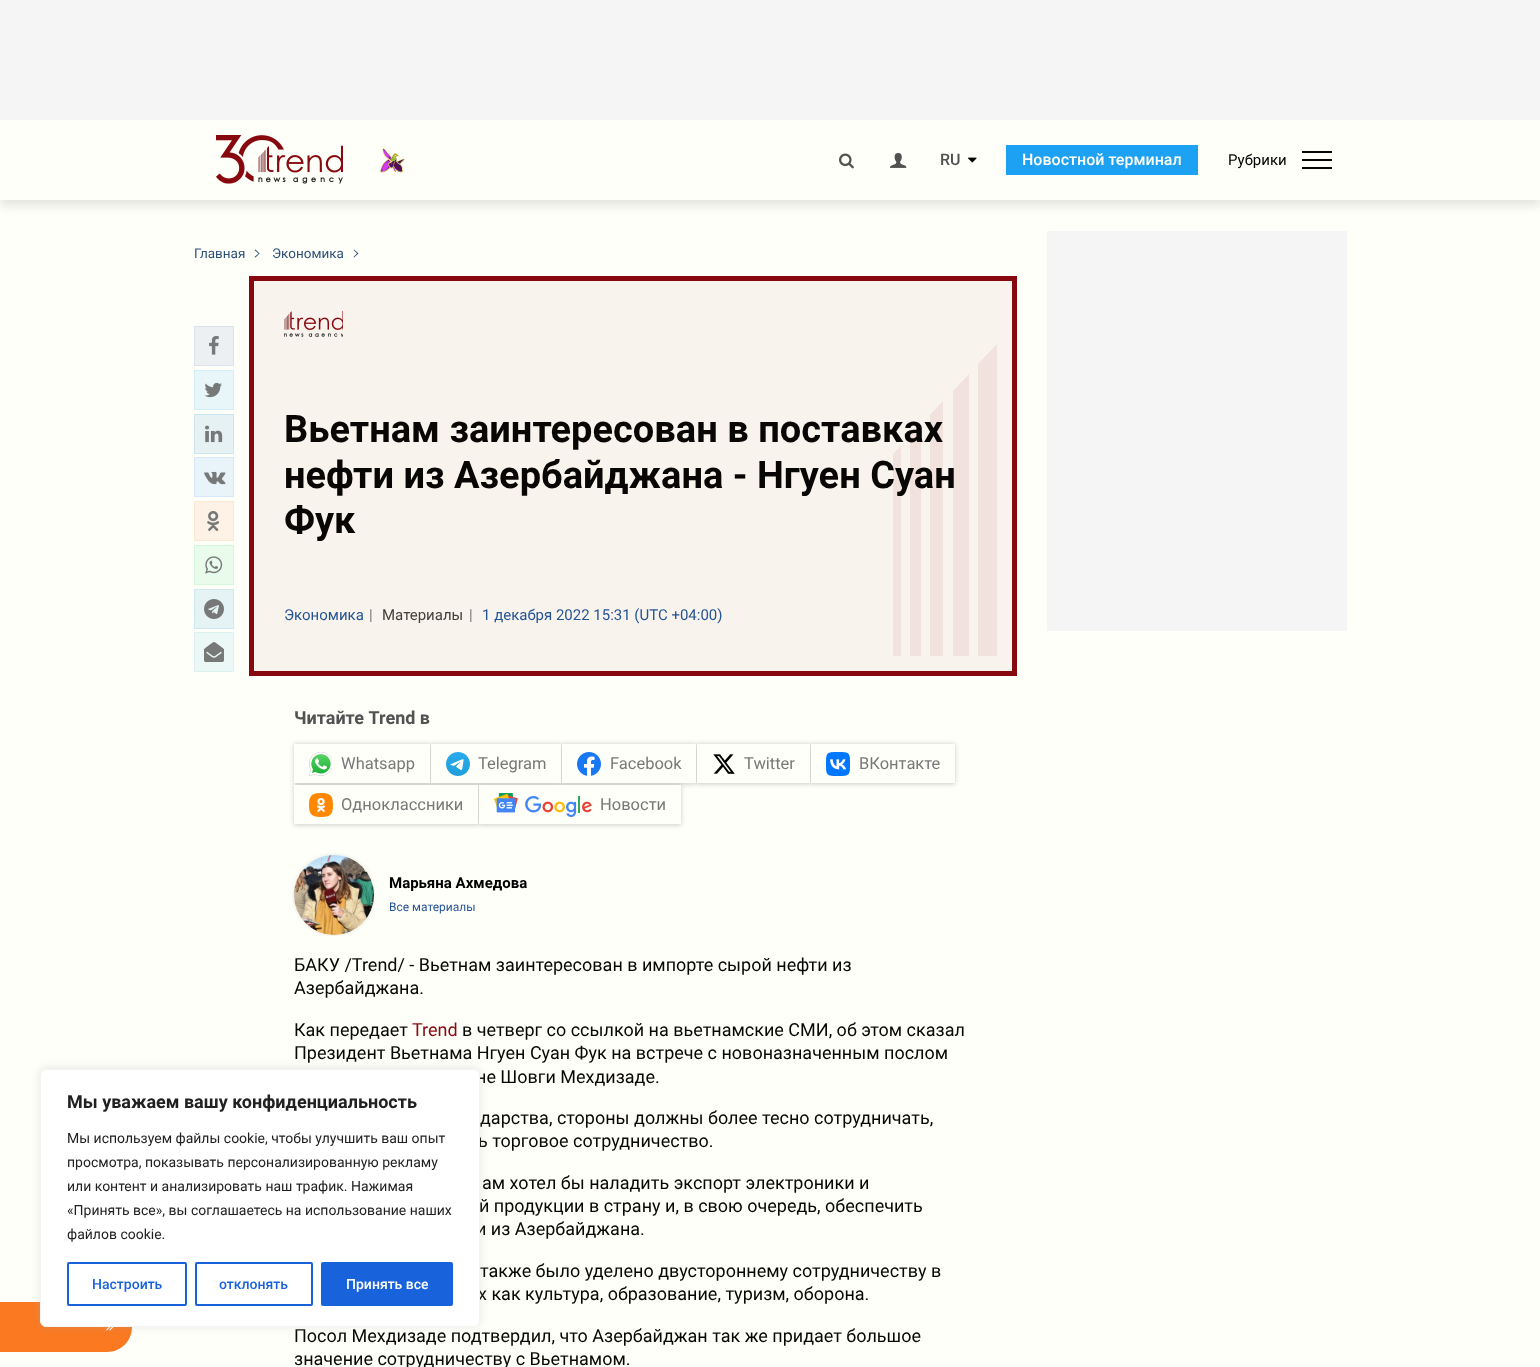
<svg xmlns="http://www.w3.org/2000/svg" width="1540" height="1367" viewBox="0 0 1540 1367">
  <rect width="100%" height="100%" fill="rgb(255,255,250)"/>
  <rect x="0" y="126" width="1540" height="80" fill="rgba(0,0,0,0.1)" filter="blur(5px)"/>
  <rect x="0" y="0" width="1540" height="120" fill="rgb(245,245,245)"/>
  <rect x="0" y="120" width="1540" height="80" fill="rgb(255,255,250)"/>
  <image x="216" y="135" width="127" height="49" href="pic1.png"/>
  <image x="380" y="148" width="25" height="25" href="pic2.png"/>
  <image x="839" y="153" width="15" height="16" href="pic3.png"/>
  <image x="890" y="152" width="17" height="16" href="pic4.png"/>
  <text x="940" y="165" font-family="Roboto" font-size="16" font-weight="500" fill="rgb(81,82,82)">RU</text>
  <image x="968" y="157" width="9" height="6" href="pic5.png"/>
  <rect x="1006" y="145" width="192" height="30" fill="rgb(29,161,242)"/>
  <text x="1022" y="165" font-family="Roboto" font-size="16" font-weight="500" fill="rgb(255,255,250)">Новостной терминал</text>
  <text x="1228" y="165" font-family="Roboto" font-size="15" fill="rgb(0,0,0)">Рубрики</text>
  <rect x="1302" y="151" width="30" height="2" fill="rgb(8,7,5)"/>
  <rect x="1302" y="159" width="30" height="2" fill="rgb(8,7,5)"/>
  <rect x="1302" y="167" width="30" height="2" fill="rgb(8,7,5)"/>
  <text x="194" y="258" font-family="Roboto" font-size="13.5" fill="rgb(46,80,119)">Главная</text>
  <path d="M255.5 249.5L259.5 253.5L259 254L254.5 250Z" fill="rgb(46,80,119)"/>
  <path d="M259 253L259.5 253.5L255.5 257.5L254.5 257Z" fill="rgb(46,80,119)"/>
  <text x="272" y="258" font-family="Roboto" font-size="13.5" fill="rgb(46,80,119)">Экономика</text>
  <path d="M354 249.5L358.5 253.5L357.5 254L353.5 250Z" fill="rgb(46,80,119)"/>
  <path d="M357.5 253L358.5 253.5L354 257.5L353.5 257Z" fill="rgb(46,80,119)"/>
  <rect x="194.5" y="326.5" width="39" height="39" fill="rgb(236,240,243)" stroke="rgb(219,226,237)"/>
  <image x="209" y="336" width="10" height="19" href="pic6.png"/>
  <rect x="194.5" y="370.5" width="39" height="39" fill="rgb(232,246,249)" stroke="rgb(212,238,248)"/>
  <image x="204" y="382" width="18" height="16" href="pic7.png"/>
  <rect x="194.5" y="414.5" width="39" height="39" fill="rgb(230,241,243)" stroke="rgb(207,229,237)"/>
  <image x="205" y="425" width="18" height="18" href="pic8.png"/>
  <rect x="194.5" y="457.5" width="39" height="39" fill="rgb(233,243,250)" stroke="rgb(214,232,250)"/>
  <image x="204" y="471" width="22" height="14" href="pic9.png"/>
  <rect x="194.5" y="501.5" width="39" height="39" fill="rgb(253,242,229)" stroke="rgb(251,231,210)"/>
  <image x="207" y="511" width="13" height="20" href="pic10.png"/>
  <rect x="194.5" y="545.5" width="39" height="39" fill="rgb(233,251,235)" stroke="rgb(213,247,222)"/>
  <image x="205" y="556" width="18" height="18" href="pic11.png"/>
  <rect x="194.5" y="589.5" width="39" height="39" fill="rgb(230,243,245)" stroke="rgb(207,232,241)"/>
  <image x="204" y="599" width="20" height="20" href="pic12.png"/>
  <rect x="194.5" y="632.5" width="39" height="39" fill="rgb(236,248,245)" stroke="rgb(219,242,241)"/>
  <image x="204" y="642" width="20" height="20" href="pic13.png"/>
  <rect x="251.5" y="278.5" width="763" height="395" fill="rgb(249,243,238)" stroke="rgb(135,8,14)" stroke-width="5"/>
  <image x="284" y="311" width="59" height="26" href="pic14.png"/>
  <path d="M997 344V656H978V364ZM953 656H969V374L953 391ZM930 656H943V401L930 415ZM910 656H921V425L910 436ZM893 656H901V446L893 454Z" fill="rgba(135,8,14,0.07)"/>
  <g font-family="Roboto" font-size="38" font-weight="bold" fill="rgb(8,7,5)">
    <text>
      <tspan x="284" y="442">Вьетнам заинтересован в поставках</tspan>
      <tspan x="284" y="488">нефти из Азербайджана - Нгуен Суан</tspan>
      <tspan x="284" y="533">Фук</tspan>
    </text>
  </g>
  <text x="284" y="620" font-family="Roboto" font-size="15" fill="rgb(36,84,148)">Экономика</text>
  <text x="369" y="620" font-family="Roboto" font-size="15" fill="rgb(119,121,121)">|</text>
  <text x="382" y="620" font-family="Roboto" font-size="15" fill="rgb(67,65,56)">Материалы</text>
  <text x="469" y="620" font-family="Roboto" font-size="15" fill="rgb(119,121,121)">|</text>
  <text x="482" y="620" font-family="Roboto" font-size="15" fill="rgb(36,84,148)">1 декабря 2022 15:31 (UTC +04:00)</text>
  <text x="294" y="724" font-family="Roboto" font-size="18" font-weight="bold" fill="rgb(81,82,82)">Читайте Trend в</text>
  <rect x="294" y="744" width="136" height="40" fill="rgba(0,0,0,0.2)" filter="blur(2.5px)"/>
  <rect x="431" y="744" width="130" height="40" fill="rgba(0,0,0,0.2)" filter="blur(2.5px)"/>
  <rect x="294" y="785" width="184" height="40" fill="rgba(0,0,0,0.2)" filter="blur(2.5px)"/>
  <rect x="294" y="744" width="136" height="39" fill="rgb(255,255,250)"/>
  <image x="309" y="752" width="23" height="24" href="pic15.png"/>
  <text x="341" y="769" font-family="Roboto" font-size="16.5" fill="rgb(119,121,121)">Whatsapp</text>
  <rect x="562" y="744" width="134" height="40" fill="rgba(0,0,0,0.2)" filter="blur(2.5px)"/>
  <rect x="479" y="785" width="202" height="40" fill="rgba(0,0,0,0.2)" filter="blur(2.5px)"/>
  <rect x="431" y="744" width="130" height="39" fill="rgb(255,255,250)"/>
  <image x="446" y="752" width="24" height="24" href="pic16.png"/>
  <text x="478" y="769" font-family="Roboto" font-size="16.5" fill="rgb(119,121,121)">Telegram</text>
  <rect x="697" y="744" width="113" height="40" fill="rgba(0,0,0,0.2)" filter="blur(2.5px)"/>
  <rect x="562" y="744" width="134" height="39" fill="rgb(255,255,250)"/>
  <image x="577" y="752" width="24" height="24" href="pic17.png"/>
  <text x="610" y="769" font-family="Roboto" font-size="16.5" fill="rgb(119,121,121)">Facebook</text>
  <rect x="811" y="744" width="144" height="40" fill="rgba(0,0,0,0.2)" filter="blur(2.5px)"/>
  <rect x="697" y="744" width="113" height="39" fill="rgb(255,255,250)"/>
  <image x="713" y="754" width="22" height="20" href="pic18.png"/>
  <text x="744" y="769" font-family="Roboto" font-size="16.5" fill="rgb(119,121,121)">Twitter</text>
  <rect x="811" y="744" width="144" height="39" fill="rgb(255,255,250)"/>
  <image x="826" y="752" width="24" height="24" href="pic19.png"/>
  <text x="859" y="769" font-family="Roboto" font-size="16.5" fill="rgb(119,121,121)">ВКонтакте</text>
  <rect x="294" y="785" width="184" height="39" fill="rgb(255,255,250)"/>
  <image x="309" y="793" width="24" height="24" href="pic20.png"/>
  <text x="341" y="810" font-family="Roboto" font-size="16.5" fill="rgb(119,121,121)">Одноклассники</text>
  <rect x="479" y="785" width="202" height="39" fill="rgb(255,255,250)"/>
  <image x="494" y="793" width="98" height="24" href="pic21.png"/>
  <text x="600" y="810" font-family="Roboto" font-size="16.5" fill="rgb(119,121,121)">Новости</text>
  <image x="292" y="853" width="83" height="83" href="pic22.png"/>
  <text x="389" y="888" font-family="Roboto" font-size="15" font-weight="bold" fill="rgb(0,0,0)">Марьяна Ахмедова</text>
  <text x="389" y="911" font-family="Roboto" font-size="12" fill="rgb(36,84,148)">Все материалы</text>
  <g font-family="Roboto" font-size="18" fill="rgb(8,7,5)">
    <text>
      <tspan x="294" y="971">БАКУ /Trend/ - Вьетнам заинтересован в импорте сырой нефти из</tspan>
      <tspan x="294" y="994">Азербайджана.</tspan>
    </text>
    <text x="294" y="1036">Как передает</text>
  </g>
  <text x="412" y="1036" font-family="Roboto" font-size="18" fill="rgb(135,8,14)">Trend</text>
  <g font-family="Roboto" font-size="18" fill="rgb(8,7,5)">
    <text x="462" y="1036">в четверг со ссылкой на вьетнамские СМИ, об этом сказал</text>
    <text x="294" y="1059">Президент Вьетнама Нгуен Суан Фук на встрече с новоназначенным послом</text>
    <text x="476" y="1083">не Шовги Мехдизаде.</text>
    <text x="480" y="1124">дарства, стороны должны более тесно сотрудничать,</text>
    <text x="478" y="1147">ь торговое сотрудничество.</text>
    <text x="482" y="1189">ам хотел бы наладить экспорт электроники и</text>
    <text x="479" y="1212">й продукции в страну и, в свою очередь, обеспечить</text>
    <text x="476" y="1235">и из Азербайджана.</text>
    <text x="480" y="1277">также было уделено двустороннему сотрудничеству в</text>
    <text x="478" y="1300">х как культура, образование, туризм, оборона.</text>
    <text>
      <tspan x="294" y="1342">Посол Мехдизаде подтвердил, что Азербайджан так же придает большое</tspan>
      <tspan x="294" y="1365">значение сотрудничеству с Вьетнамом.</tspan>
    </text>
  </g>
  <rect x="1047" y="231" width="300" height="400" fill="rgb(245,245,245)"/>
  <path d="M0 1302H107C121 1302 132 1313 132 1327C132 1341 121 1352 107 1352H0Z" fill="rgb(250,121,33)"/>
  <image x="106" y="1327" width="8" height="4" href="pic23.png"/>
  <rect x="40" y="1068" width="440" height="258" rx="6" fill="rgba(172,171,171,0.3)" filter="blur(5px)"/>
  <rect x="40.5" y="1069.5" width="439" height="257" rx="5.5" fill="rgb(255,255,255)" stroke="rgb(244,244,244)"/>
  <text x="67" y="1108" font-family="Roboto" font-size="18" font-weight="bold" fill="rgb(33,33,33)">Мы уважаем вашу конфиденциальность</text>
  <g font-family="Roboto" font-size="14" fill="rgb(33,33,33)">
    <text>
      <tspan x="67" y="1143">Мы используем файлы cookie, чтобы улучшить ваш опыт</tspan>
      <tspan x="67" y="1167">просмотра, показывать персонализированную рекламу</tspan>
      <tspan x="67" y="1191">или контент и анализировать наш трафик. Нажимая</tspan>
      <tspan x="67" y="1215">«Принять все», вы соглашаетесь на использование наших</tspan>
      <tspan x="67" y="1239">файлов cookie.</tspan>
    </text>
  </g>
  <rect x="68" y="1263" width="118" height="42" rx="1" fill="none" stroke="rgb(24,99,220)" stroke-width="2"/>
  <text x="92" y="1289" font-family="Roboto" font-size="14" font-weight="500" fill="rgb(24,99,220)">Настроить</text>
  <rect x="196" y="1263" width="116" height="42" rx="1" fill="none" stroke="rgb(24,99,220)" stroke-width="2"/>
  <text x="219" y="1289" font-family="Roboto" font-size="14" font-weight="500" fill="rgb(24,99,220)">отклонять</text>
  <rect x="322" y="1263" width="130" height="42" rx="1" fill="rgb(24,99,220)" stroke="rgb(24,99,220)" stroke-width="2"/>
  <text x="346" y="1289" font-family="Roboto" font-size="14" font-weight="500" fill="rgb(255,255,250)">Принять все</text>
</svg>
